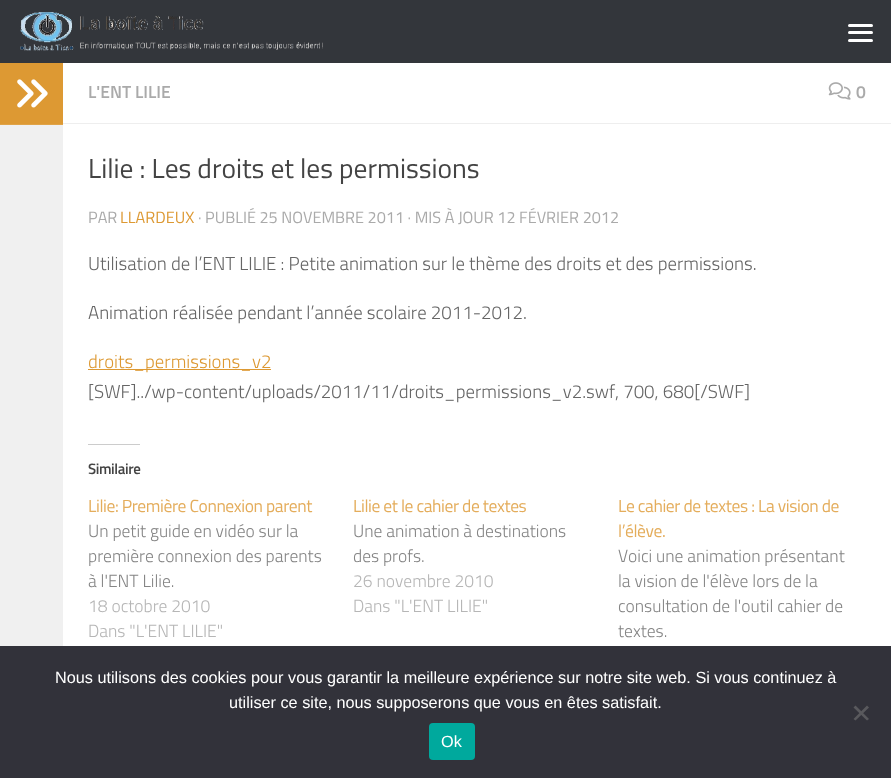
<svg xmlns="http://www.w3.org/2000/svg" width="891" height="778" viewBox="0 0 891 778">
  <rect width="100%" height="100%" fill="rgb(255,255,255)"/>
  <rect x="0" y="0" width="891" height="63" fill="rgb(51,54,59)"/>
  <image x="20" y="12" width="303" height="39" href="pic1.png"/>
  <rect x="848" y="24" width="25" height="3" rx="1.5" fill="rgb(255,255,255)"/>
  <rect x="848" y="31" width="25" height="3" rx="1.5" fill="rgb(255,255,255)"/>
  <rect x="848" y="39" width="25" height="3" rx="1.5" fill="rgb(255,255,255)"/>
  <rect x="0" y="125" width="63" height="521" fill="rgb(240,240,240)"/>
  <rect x="0" y="63" width="63" height="61" fill="rgb(221,153,51)"/>
  <rect x="0" y="124" width="63" height="1" fill="rgb(224,163,71)"/>
  <image x="17" y="79" width="31" height="29" href="pic2.png"/>
  <rect x="63" y="123" width="828" height="1" fill="rgb(238,238,238)"/>
  <text x="88" y="98" font-family="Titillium" font-size="17.5" font-weight="600" fill="rgb(170,170,170)">L'ENT LILIE</text>
  <image x="828" y="82" width="23" height="18" href="pic3.png"/>
  <text x="856" y="98" font-family="Titillium" font-size="17.5" font-weight="600" fill="rgb(170,170,170)">0</text>
  <text x="88" y="178" font-family="Titillium" font-size="27.5" fill="rgb(68,68,68)">Lilie : Les droits et les permissions</text>
  <text x="88" y="223" font-family="Titillium" font-size="16.25" fill="rgb(170,170,170)">PAR</text>
  <text x="120" y="223" font-family="Titillium" font-size="16.25" fill="rgb(221,153,51)">LLARDEUX</text>
  <text x="198" y="223" font-family="Titillium" font-size="16.25" fill="rgb(170,170,170)">· PUBLIÉ 25 NOVEMBRE 2011 · MIS À JOUR 12 FÉVRIER 2012</text>
  <g font-family="Titillium" font-size="18.75" font-weight="300" fill="rgb(102,102,102)">
    <text x="88" y="270">Utilisation de l’ENT LILIE : Petite animation sur le thème des droits et des permissions.</text>
    <text x="88" y="319">Animation réalisée pendant l’année scolaire 2011-2012.</text>
  </g>
  <rect x="88" y="369" width="183" height="1" fill="rgb(221,153,51)"/>
  <text x="88" y="368" font-family="Titillium" font-size="18.75" font-weight="300" fill="rgb(221,153,51)">droits_permissions_v2</text>
  <text x="88" y="398" font-family="Titillium" font-size="18.75" font-weight="300" fill="rgb(102,102,102)">[SWF]../wp-content/uploads/2011/11/droits_permissions_v2.swf, 700, 680[/SWF]</text>
  <rect x="88" y="444" width="52" height="1" fill="rgb(204,204,204)"/>
  <text x="88" y="474" font-family="Titillium" font-size="15" font-weight="600" letter-spacing="-0.4" fill="rgb(68,68,68)">Similaire</text>
  <text x="88" y="512" font-family="Titillium" font-size="17.5" letter-spacing="-0.4" fill="rgb(228,173,92)">Lilie: Première Connexion parent</text>
  <g font-family="Titillium" font-size="17.5" font-weight="300" fill="rgb(133,133,133)">
    <text>
      <tspan x="88" y="537">Un petit guide en vidéo sur la</tspan>
      <tspan x="88" y="562">première connexion des parents</tspan>
      <tspan x="88" y="587">à l'ENT Lilie.</tspan>
    </text>
  </g>
  <g font-family="Titillium" font-size="17.5" font-weight="300" fill="rgb(182,182,182)">
    <text>
      <tspan x="88" y="612">18 octobre 2010</tspan>
      <tspan x="88" y="637">Dans "L'ENT LILIE"</tspan>
    </text>
  </g>
  <text x="353" y="512" font-family="Titillium" font-size="17.5" letter-spacing="-0.4" fill="rgb(228,173,92)">Lilie et le cahier de textes</text>
  <g font-family="Titillium" font-size="17.5" font-weight="300" fill="rgb(133,133,133)">
    <text>
      <tspan x="353" y="537">Une animation à destinations</tspan>
      <tspan x="353" y="562">des profs.</tspan>
    </text>
  </g>
  <g font-family="Titillium" font-size="17.5" font-weight="300" fill="rgb(182,182,182)">
    <text>
      <tspan x="353" y="587">26 novembre 2010</tspan>
      <tspan x="353" y="612">Dans "L'ENT LILIE"</tspan>
    </text>
  </g>
  <g font-family="Titillium" font-size="17.5" letter-spacing="-0.4" fill="rgb(228,173,92)">
    <text>
      <tspan x="618" y="512">Le cahier de textes : La vision de</tspan>
      <tspan x="618" y="537">l’élève.</tspan>
    </text>
  </g>
  <g font-family="Titillium" font-size="17.5" font-weight="300" fill="rgb(133,133,133)">
    <text>
      <tspan x="618" y="562">Voici une animation présentant</tspan>
      <tspan x="618" y="587">la vision de l'élève lors de la</tspan>
      <tspan x="618" y="612">consultation de l'outil cahier de</tspan>
      <tspan x="618" y="637">textes.</tspan>
    </text>
  </g>
  <rect x="0" y="646" width="891" height="132" fill="rgb(50,50,58)"/>
  <g font-family="Liberation Sans" font-size="16.25" fill="rgb(255,255,255)">
    <text x="55" y="683">Nous utilisons des cookies pour vous garantir la meilleure expérience sur notre site web. Si vous continuez à</text>
    <text x="229" y="708">utiliser ce site, nous supposerons que vous en êtes satisfait.</text>
  </g>
  <path d="M867 705.5L869 707.5L855.5 720.5L853.5 719Z" fill="rgb(89,89,93)"/>
  <path d="M853.5 707.5L855.5 705.5L869 719L867 720.5Z" fill="rgb(89,89,93)"/>
  <rect x="429" y="723" width="46" height="37" rx="4" fill="rgb(0,169,157)"/>
  <text x="441" y="747" font-family="Liberation Sans" font-size="16.25" fill="rgb(255,255,255)">Ok</text>
</svg>
